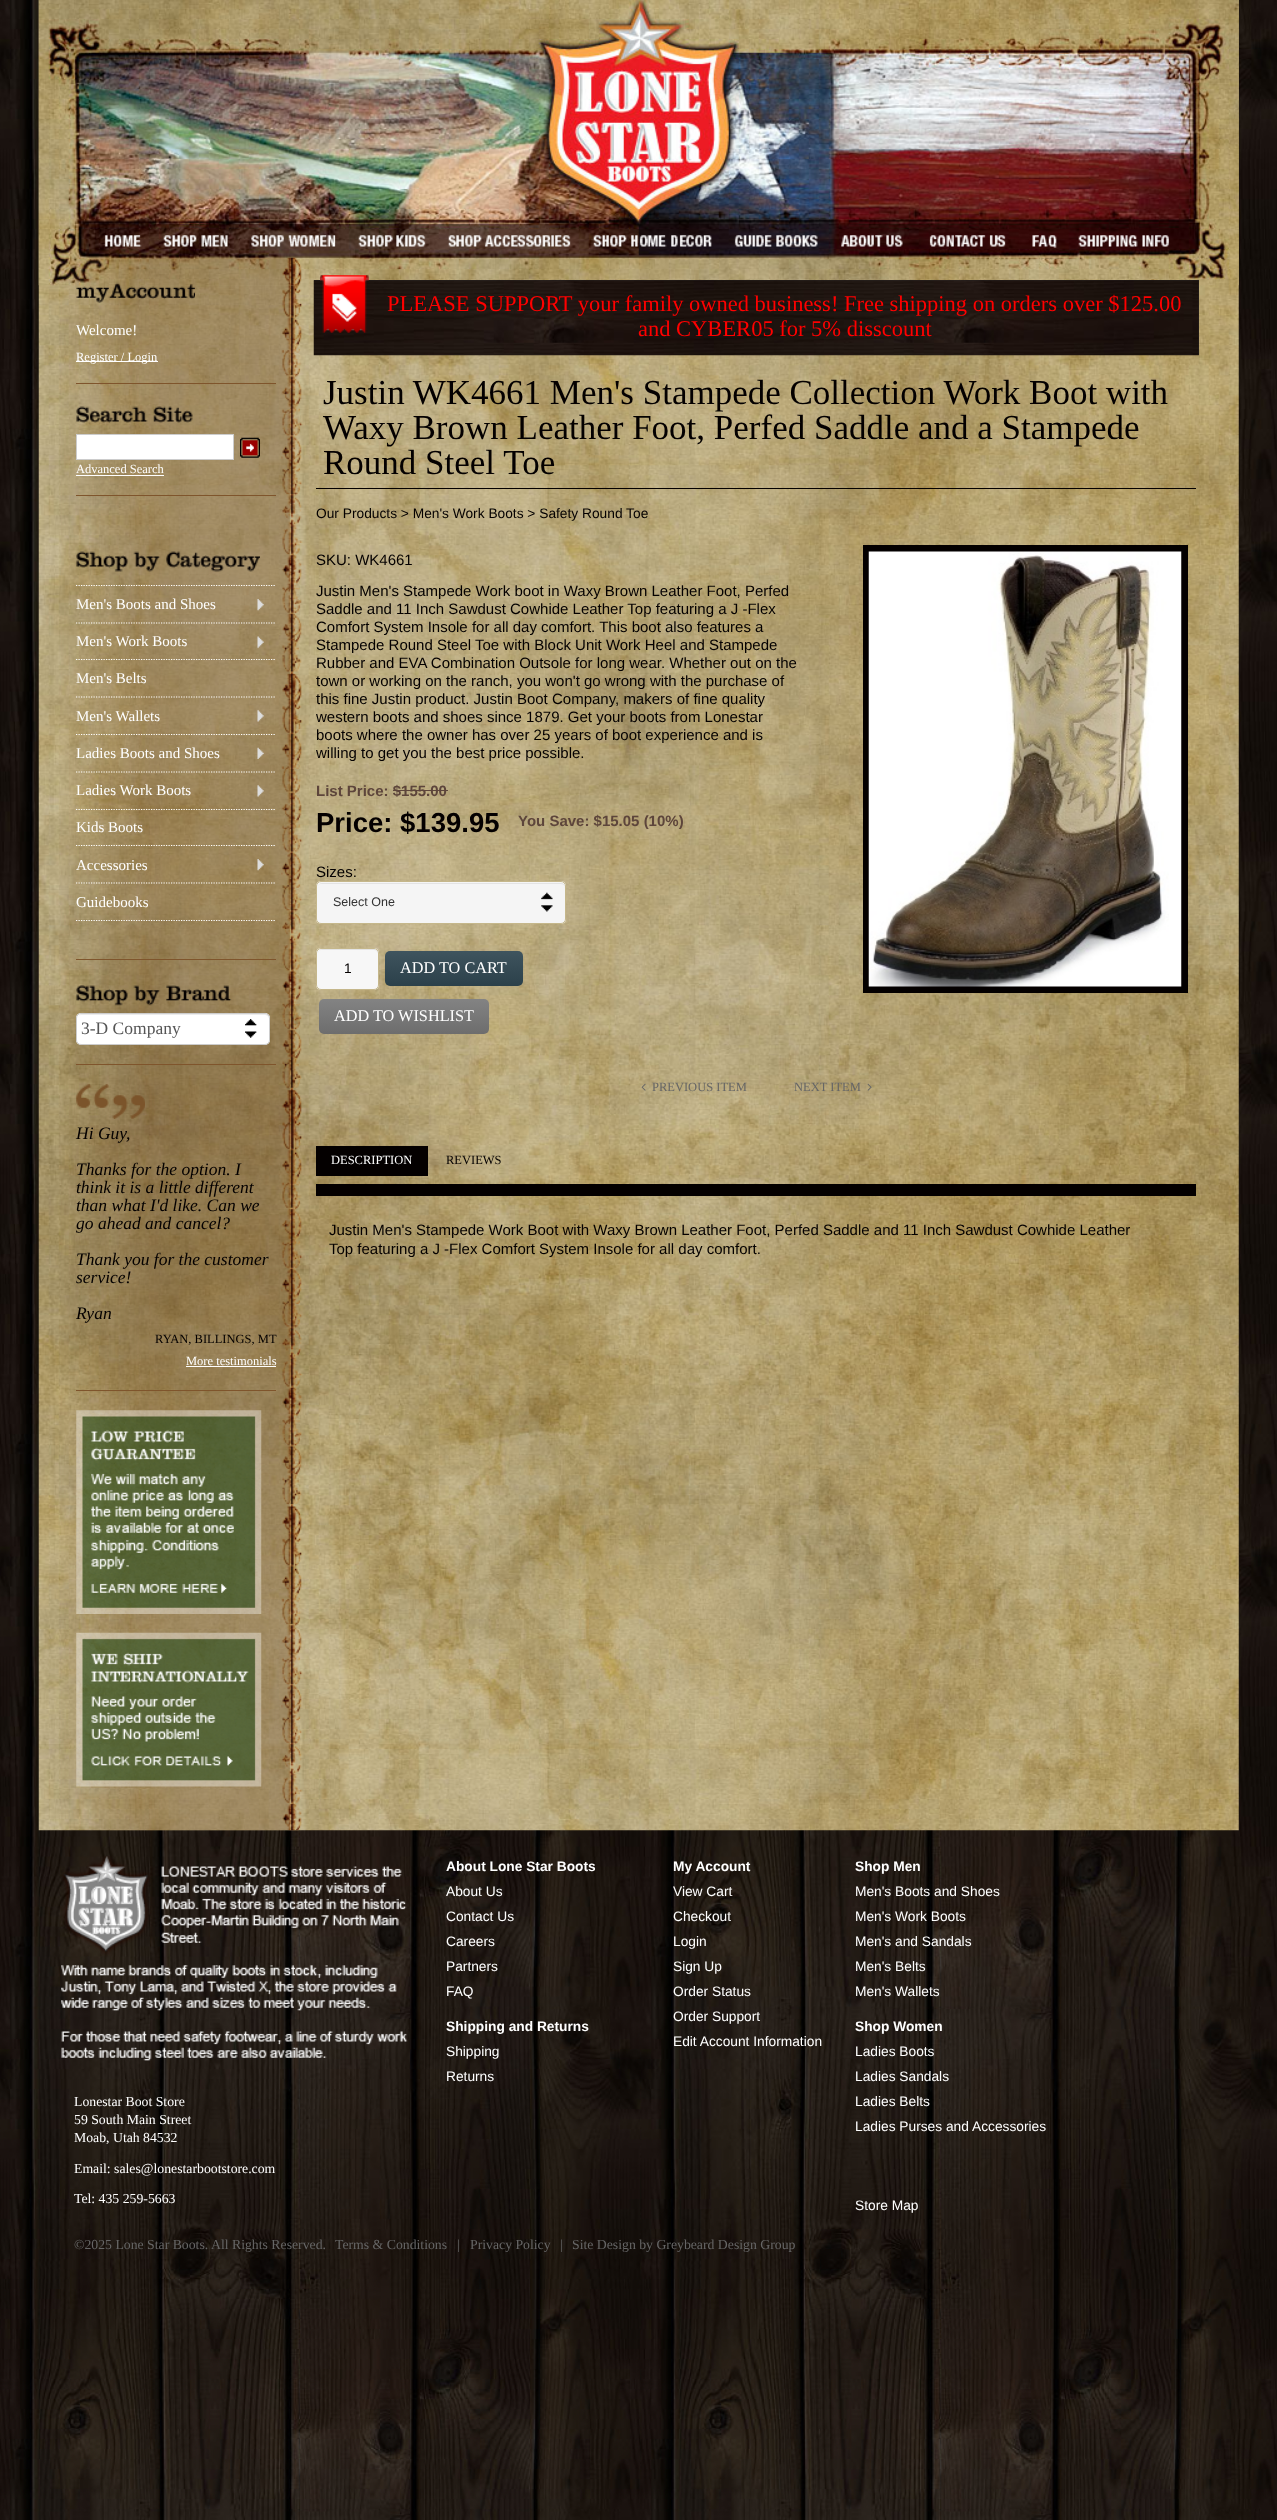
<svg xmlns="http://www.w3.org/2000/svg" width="1277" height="2520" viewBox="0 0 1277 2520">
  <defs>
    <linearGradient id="g1" gradientUnits="userSpaceOnUse" x1="454" y1="951" x2="454" y2="986"><stop offset="0" stop-color="rgb(63,84,94)"/><stop offset="1" stop-color="rgb(43,64,74)"/></linearGradient>
    <linearGradient id="g2" gradientUnits="userSpaceOnUse" x1="404" y1="999" x2="404" y2="1034"><stop offset="0" stop-color="rgb(131,131,131)"/><stop offset="1" stop-color="rgb(109,109,109)"/></linearGradient>
  </defs>
  <rect width="100%" height="100%" fill="rgb(255,255,255)"/>
  <image x="0" y="0" width="1277" height="2520" href="pic1.png"/>
  <image x="38" y="0" width="1201" height="1831" href="pic2.png"/>
  <image x="59" y="285" width="244" height="1546" href="pic5.png"/>
  <image x="38" y="0" width="1201" height="286" href="pic3.png"/>
  <image x="104" y="235" width="1065" height="13" href="pic4.png"/>
  <image x="76" y="282" width="119" height="21" href="pic7.png"/>
  <image x="62" y="257" width="240" height="29" href="pic6.png"/>
  <rect x="76" y="383" width="200" height="1" fill="rgb(127,85,44)"/>
  <text x="76" y="335" font-family="Liberation Serif" font-size="15" fill="rgb(255,255,255)">Welcome!</text>
  <rect x="76" y="361" width="82" height="1" fill="rgb(255,255,255)"/>
  <text x="76" y="361" font-family="Liberation Serif" font-size="12.5" fill="rgb(255,255,255)">Register / Login</text>
  <rect x="76" y="495" width="200" height="1" fill="rgb(127,85,44)"/>
  <image x="76" y="406" width="117" height="17" href="pic8.png"/>
  <rect x="76.5" y="434.5" width="157" height="25" fill="rgb(255,255,255)" stroke="rgb(204,204,204)"/>
  <image x="240" y="437" width="20" height="21" href="pic9.png"/>
  <text x="76" y="473" font-family="Liberation Serif" font-size="12.5" fill="rgb(255,255,255)">Advanced Search</text>
  <rect x="76" y="475" width="88" height="1" fill="rgb(255,255,255)"/>
  <image x="76" y="551" width="184" height="21" href="pic10.png"/>
  <path d="M76 920.5H276" fill="none" stroke="rgb(255,255,255)" stroke-width="1.2" stroke-dasharray="1.25 1.25"/>
  <image x="257" y="599" width="7" height="12" href="pic11.png"/>
  <path d="M76 585.5H276" fill="none" stroke="rgb(255,255,255)" stroke-width="1.2" stroke-dasharray="1.25 1.25"/>
  <text x="76" y="609" font-family="Liberation Serif" font-size="15" fill="rgb(255,255,255)">Men's Boots and Shoes</text>
  <image x="257" y="636" width="7" height="12" href="pic12.png"/>
  <path d="M76 623H276" fill="none" stroke="rgb(255,255,255)" stroke-width="1.2" stroke-dasharray="1.25 1.25"/>
  <text x="76" y="646" font-family="Liberation Serif" font-size="15" fill="rgb(255,255,255)">Men's Work Boots</text>
  <path d="M76 659.5H276" fill="none" stroke="rgb(255,255,255)" stroke-width="1.2" stroke-dasharray="1.25 1.25"/>
  <text x="76" y="683" font-family="Liberation Serif" font-size="15" fill="rgb(255,255,255)">Men's Belts</text>
  <image x="257" y="710" width="7" height="12" href="pic13.png"/>
  <path d="M76 697H276" fill="none" stroke="rgb(255,255,255)" stroke-width="1.2" stroke-dasharray="1.25 1.25"/>
  <text x="76" y="721" font-family="Liberation Serif" font-size="15" fill="rgb(255,255,255)">Men's Wallets</text>
  <image x="257" y="747" width="7" height="12" href="pic14.png"/>
  <path d="M76 734.5H276" fill="none" stroke="rgb(255,255,255)" stroke-width="1.2" stroke-dasharray="1.25 1.25"/>
  <text x="76" y="758" font-family="Liberation Serif" font-size="15" fill="rgb(255,255,255)">Ladies Boots and Shoes</text>
  <image x="257" y="785" width="7" height="12" href="pic15.png"/>
  <path d="M76 772H276" fill="none" stroke="rgb(255,255,255)" stroke-width="1.2" stroke-dasharray="1.25 1.25"/>
  <text x="76" y="795" font-family="Liberation Serif" font-size="15" fill="rgb(255,255,255)">Ladies Work Boots</text>
  <path d="M76 809.5H276" fill="none" stroke="rgb(255,255,255)" stroke-width="1.2" stroke-dasharray="1.25 1.25"/>
  <text x="76" y="832" font-family="Liberation Serif" font-size="15" fill="rgb(255,255,255)">Kids Boots</text>
  <image x="257" y="859" width="7" height="12" href="pic16.png"/>
  <path d="M76 845.5H276" fill="none" stroke="rgb(255,255,255)" stroke-width="1.2" stroke-dasharray="1.25 1.25"/>
  <text x="76" y="870" font-family="Liberation Serif" font-size="15" fill="rgb(255,255,255)">Accessories</text>
  <path d="M76 883H276" fill="none" stroke="rgb(255,255,255)" stroke-width="1.2" stroke-dasharray="1.25 1.25"/>
  <text x="76" y="907" font-family="Liberation Serif" font-size="15" fill="rgb(255,255,255)">Guidebooks</text>
  <rect x="76" y="959" width="200" height="1" fill="rgb(127,85,44)"/>
  <rect x="76" y="1064" width="200" height="1" fill="rgb(127,85,44)"/>
  <image x="76" y="985" width="156" height="21" href="pic17.png"/>
  <rect x="76" y="1013" width="194" height="32" rx="5" fill="rgb(255,255,255)"/>
  <image x="245" y="1019" width="12" height="19" href="pic18.png"/>
  <path d="M81 1015H265C267 1015 269 1017 269 1019C269 1016 268 1014 265 1014H81C79 1015 78 1017 78 1019C78 1017 79 1015 81 1015Z" fill="rgb(236,236,236)"/>
  <rect x="76.5" y="1013.5" width="193" height="31" rx="4.5" fill="none" stroke="rgb(204,204,204)"/>
  <text x="81" y="1034" font-family="Liberation Serif" font-size="17.5" fill="rgb(85,85,85)">3-D Company</text>
  <image x="76" y="1084" width="69" height="35" href="pic19.png"/>
  <rect x="76" y="1390" width="200" height="1" fill="rgb(127,85,44)"/>
  <g font-family="Liberation Serif" font-size="17.5" font-style="italic" fill="rgb(4,0,0)">
    <text x="76" y="1139">Hi Guy,</text>
    <text>
      <tspan x="76" y="1175">Thanks for the option. I</tspan>
      <tspan x="76" y="1193">think it is a little different</tspan>
      <tspan x="76" y="1211">than what I'd like. Can we</tspan>
      <tspan x="76" y="1229">go ahead and cancel?</tspan>
    </text>
    <text>
      <tspan x="76" y="1265">Thank you for the customer</tspan>
      <tspan x="76" y="1283">service!</tspan>
    </text>
    <text x="76" y="1319">Ryan</text>
  </g>
  <text x="155" y="1343" font-family="Liberation Serif" font-size="12.5" fill="rgb(4,0,0)">RYAN, BILLINGS, MT</text>
  <text x="186" y="1365" font-family="Liberation Serif" font-size="12.5" fill="rgb(255,255,255)">More testimonials</text>
  <rect x="186" y="1366" width="90" height="1" fill="rgb(255,255,255)"/>
  <image x="76" y="1410" width="186" height="204" href="pic20.png"/>
  <image x="76" y="1632" width="186" height="156" href="pic21.png"/>
  <rect x="314" y="280" width="885" height="75" fill="rgb(51,51,51)"/>
  <image x="313" y="280" width="886" height="76" href="pic22.png"/>
  <image x="320" y="275" width="49" height="58" href="pic23.png"/>
  <g font-family="Liberation Serif" font-size="22.5" fill="rgb(255,0,0)">
    <text x="387" y="311">PLEASE SUPPORT your family owned business! Free shipping on orders over $125.00</text>
    <text x="638" y="336">and CYBER05 for 5% disscount</text>
  </g>
  <rect x="316" y="488" width="880" height="1" fill="rgb(4,0,0)"/>
  <g font-family="Liberation Serif" font-size="35" fill="rgb(4,0,0)">
    <text>
      <tspan x="323" y="404">Justin WK4661 Men's Stampede Collection Work Boot with</tspan>
      <tspan x="323" y="439">Waxy Brown Leather Foot, Perfed Saddle and a Stampede</tspan>
      <tspan x="323" y="474">Round Steel Toe</tspan>
    </text>
  </g>
  <text x="316" y="518" font-family="Liberation Sans" font-size="13.75" fill="rgb(4,0,0)">Our Products &gt; Men's Work Boots &gt; Safety Round Toe</text>
  <g font-family="Liberation Sans" font-size="15" fill="rgb(4,0,0)">
    <text x="316" y="565">SKU: WK4661</text>
    <text>
      <tspan x="316" y="596">Justin Men's Stampede Work boot in Waxy Brown Leather Foot, Perfed</tspan>
      <tspan x="316" y="614">Saddle and 11 Inch Sawdust Cowhide Leather Top featuring a J -Flex</tspan>
      <tspan x="316" y="632">Comfort System Insole for all day comfort. This boot also features a</tspan>
      <tspan x="316" y="650">Stampede Round Steel Toe with Block Unit Work Heel and Stampede</tspan>
      <tspan x="316" y="668">Rubber and EVA Combination Outsole for long wear. Whether out on the</tspan>
      <tspan x="316" y="686">town or working on the ranch, you won't go wrong with the purchase of</tspan>
      <tspan x="316" y="704">this fine Justin product. Justin Boot Company, makers of fine quality</tspan>
      <tspan x="316" y="722">western boots and shoes since 1879. Get your boots from Lonestar</tspan>
      <tspan x="316" y="740">boots where the owner has over 25 years of boot experience and is</tspan>
      <tspan x="316" y="758">willing to get you the best price possible.</tspan>
    </text>
  </g>
  <text x="316" y="796" font-family="Liberation Sans" font-size="15" font-weight="bold" fill="rgb(93,69,59)">List Price: $155.00</text>
  <rect x="393" y="790" width="55" height="1" fill="rgb(93,69,59)"/>
  <text x="316" y="832" font-family="Liberation Sans" font-size="27.5" font-weight="bold" fill="rgb(4,0,0)">Price: $139.95</text>
  <text x="518" y="826" font-family="Liberation Sans" font-size="15" font-weight="bold" fill="rgb(93,69,59)">You Save: $15.05 (10%)</text>
  <text x="316" y="877" font-family="Liberation Sans" font-size="15" fill="rgb(4,0,0)">Sizes:</text>
  <rect x="316" y="881" width="250" height="43" rx="5" fill="rgb(245,245,245)"/>
  <image x="541" y="892" width="12" height="20" href="pic24.png"/>
  <path d="M321 884H561C563 884 565 885 565 888V887C565 885 563 883 561 883H322C320 883 318 885 318 887V888C318 885 319 884 321 884Z" fill="rgb(227,227,227)"/>
  <rect x="316.5" y="881.5" width="249" height="42" rx="4.5" fill="none" stroke="rgb(197,183,139)"/>
  <text x="333" y="906" font-family="Liberation Sans" font-size="12.5" fill="rgb(51,51,51)">Select One</text>
  <rect x="316" y="948" width="63" height="42" rx="5" fill="rgb(247,247,247)"/>
  <path d="M321 950H374C376 950 378 952 378 954C378 947 370 949 365 949H331C326 949 318 947 318 954C318 952 319 950 321 950Z" fill="rgb(228,228,228)"/>
  <rect x="316.5" y="948.5" width="62" height="41" rx="4.5" fill="none" stroke="rgb(197,183,139)"/>
  <text x="344" y="973" font-family="Liberation Sans" font-size="13.75" fill="rgb(4,0,0)">1</text>
  <rect x="385" y="951" width="138" height="35" rx="5" fill="url(#g1)"/>
  <text x="400" y="973" font-family="Liberation Serif" font-size="16.25" fill="rgb(255,255,255)">ADD TO CART</text>
  <rect x="319" y="999" width="170" height="35" rx="5" fill="url(#g2)"/>
  <text x="334" y="1021" font-family="Liberation Serif" font-size="16.25" fill="rgb(255,255,255)">ADD TO WISHLIST</text>
  <rect x="863" y="545" width="325" height="448" fill="rgb(4,0,0)"/>
  <image x="868" y="551" width="314" height="436" href="pic25.png"/>
  <image x="641" y="1083" width="5" height="8" href="pic26.png"/>
  <g font-family="Liberation Serif" font-size="12.5" fill="rgb(102,102,102)">
    <text x="652" y="1091">PREVIOUS ITEM</text>
    <text x="794" y="1091">NEXT ITEM</text>
  </g>
  <image x="867" y="1083" width="5" height="8" href="pic27.png"/>
  <rect x="316" y="1146" width="112" height="30" fill="rgb(4,0,0)"/>
  <text x="331" y="1164" font-family="Liberation Serif" font-size="12.5" fill="rgb(255,255,255)">DESCRIPTION</text>
  <text x="446" y="1164" font-family="Liberation Serif" font-size="12.5" fill="rgb(4,0,0)">REVIEWS</text>
  <rect x="316" y="1184" width="880" height="12" fill="rgb(4,0,0)"/>
  <g font-family="Liberation Sans" font-size="15" fill="rgb(4,0,0)">
    <text>
      <tspan x="329" y="1235">Justin Men's Stampede Work Boot with Waxy Brown Leather Foot, Perfed Saddle and 11 Inch Sawdust Cowhide Leather</tspan>
      <tspan x="329" y="1254">Top featuring a J -Flex Comfort System Insole for all day comfort.</tspan>
    </text>
  </g>
  <image x="61" y="1856" width="347" height="205" href="pic28.png"/>
  <g font-family="Liberation Serif" font-size="13.75" fill="rgb(255,255,255)">
    <text>
      <tspan x="74" y="2106">Lonestar Boot Store</tspan>
      <tspan x="74" y="2124">59 South Main Street</tspan>
      <tspan x="74" y="2142">Moab, Utah 84532</tspan>
    </text>
    <text x="74" y="2173">Email: sales@lonestarbootstore.com</text>
    <text x="74" y="2203">Tel: 435 259-5663</text>
  </g>
  <text x="446" y="1871" font-family="Liberation Sans" font-size="13.75" font-weight="bold" fill="rgb(255,255,255)">About Lone Star Boots</text>
  <g font-family="Liberation Sans" font-size="13.75" fill="rgb(255,255,255)">
    <text>
      <tspan x="446" y="1896">About Us</tspan>
      <tspan x="446" y="1921">Contact Us</tspan>
      <tspan x="446" y="1946">Careers</tspan>
      <tspan x="446" y="1971">Partners</tspan>
      <tspan x="446" y="1996">FAQ</tspan>
    </text>
  </g>
  <text x="446" y="2031" font-family="Liberation Sans" font-size="13.75" font-weight="bold" fill="rgb(255,255,255)">Shipping and Returns</text>
  <g font-family="Liberation Sans" font-size="13.75" fill="rgb(255,255,255)">
    <text>
      <tspan x="446" y="2056">Shipping</tspan>
      <tspan x="446" y="2081">Returns</tspan>
    </text>
  </g>
  <text x="673" y="1871" font-family="Liberation Sans" font-size="13.75" font-weight="bold" fill="rgb(255,255,255)">My Account</text>
  <g font-family="Liberation Sans" font-size="13.75" fill="rgb(255,255,255)">
    <text>
      <tspan x="673" y="1896">View Cart</tspan>
      <tspan x="673" y="1921">Checkout</tspan>
      <tspan x="673" y="1946">Login</tspan>
      <tspan x="673" y="1971">Sign Up</tspan>
      <tspan x="673" y="1996">Order Status</tspan>
      <tspan x="673" y="2021">Order Support</tspan>
      <tspan x="673" y="2046">Edit Account Information</tspan>
    </text>
  </g>
  <text x="855" y="1871" font-family="Liberation Sans" font-size="13.75" font-weight="bold" fill="rgb(255,255,255)">Shop Men</text>
  <g font-family="Liberation Sans" font-size="13.75" fill="rgb(255,255,255)">
    <text>
      <tspan x="855" y="1896">Men's Boots and Shoes</tspan>
      <tspan x="855" y="1921">Men's Work Boots</tspan>
      <tspan x="855" y="1946">Men's and Sandals</tspan>
      <tspan x="855" y="1971">Men's Belts</tspan>
      <tspan x="855" y="1996">Men's Wallets</tspan>
    </text>
  </g>
  <text x="855" y="2031" font-family="Liberation Sans" font-size="13.75" font-weight="bold" fill="rgb(255,255,255)">Shop Women</text>
  <g font-family="Liberation Sans" font-size="13.75" fill="rgb(255,255,255)">
    <text>
      <tspan x="855" y="2056">Ladies Boots</tspan>
      <tspan x="855" y="2081">Ladies Sandals</tspan>
      <tspan x="855" y="2106">Ladies Belts</tspan>
      <tspan x="855" y="2131">Ladies Purses and Accessories</tspan>
    </text>
    <text x="855" y="2210">Store Map</text>
  </g>
  <g font-family="Liberation Serif" font-size="13.75" fill="rgb(102,102,102)">
    <text x="74" y="2249">©2025 Lone Star Boots.</text>
    <text x="211" y="2249">All Rights Reserved.</text>
    <text x="335" y="2249">Terms &amp; Conditions</text>
    <text x="457" y="2249">|</text>
    <text x="470" y="2249">Privacy Policy</text>
    <text x="560" y="2249">|</text>
    <text x="572" y="2249">Site Design by Greybeard Design Group</text>
  </g>
</svg>
